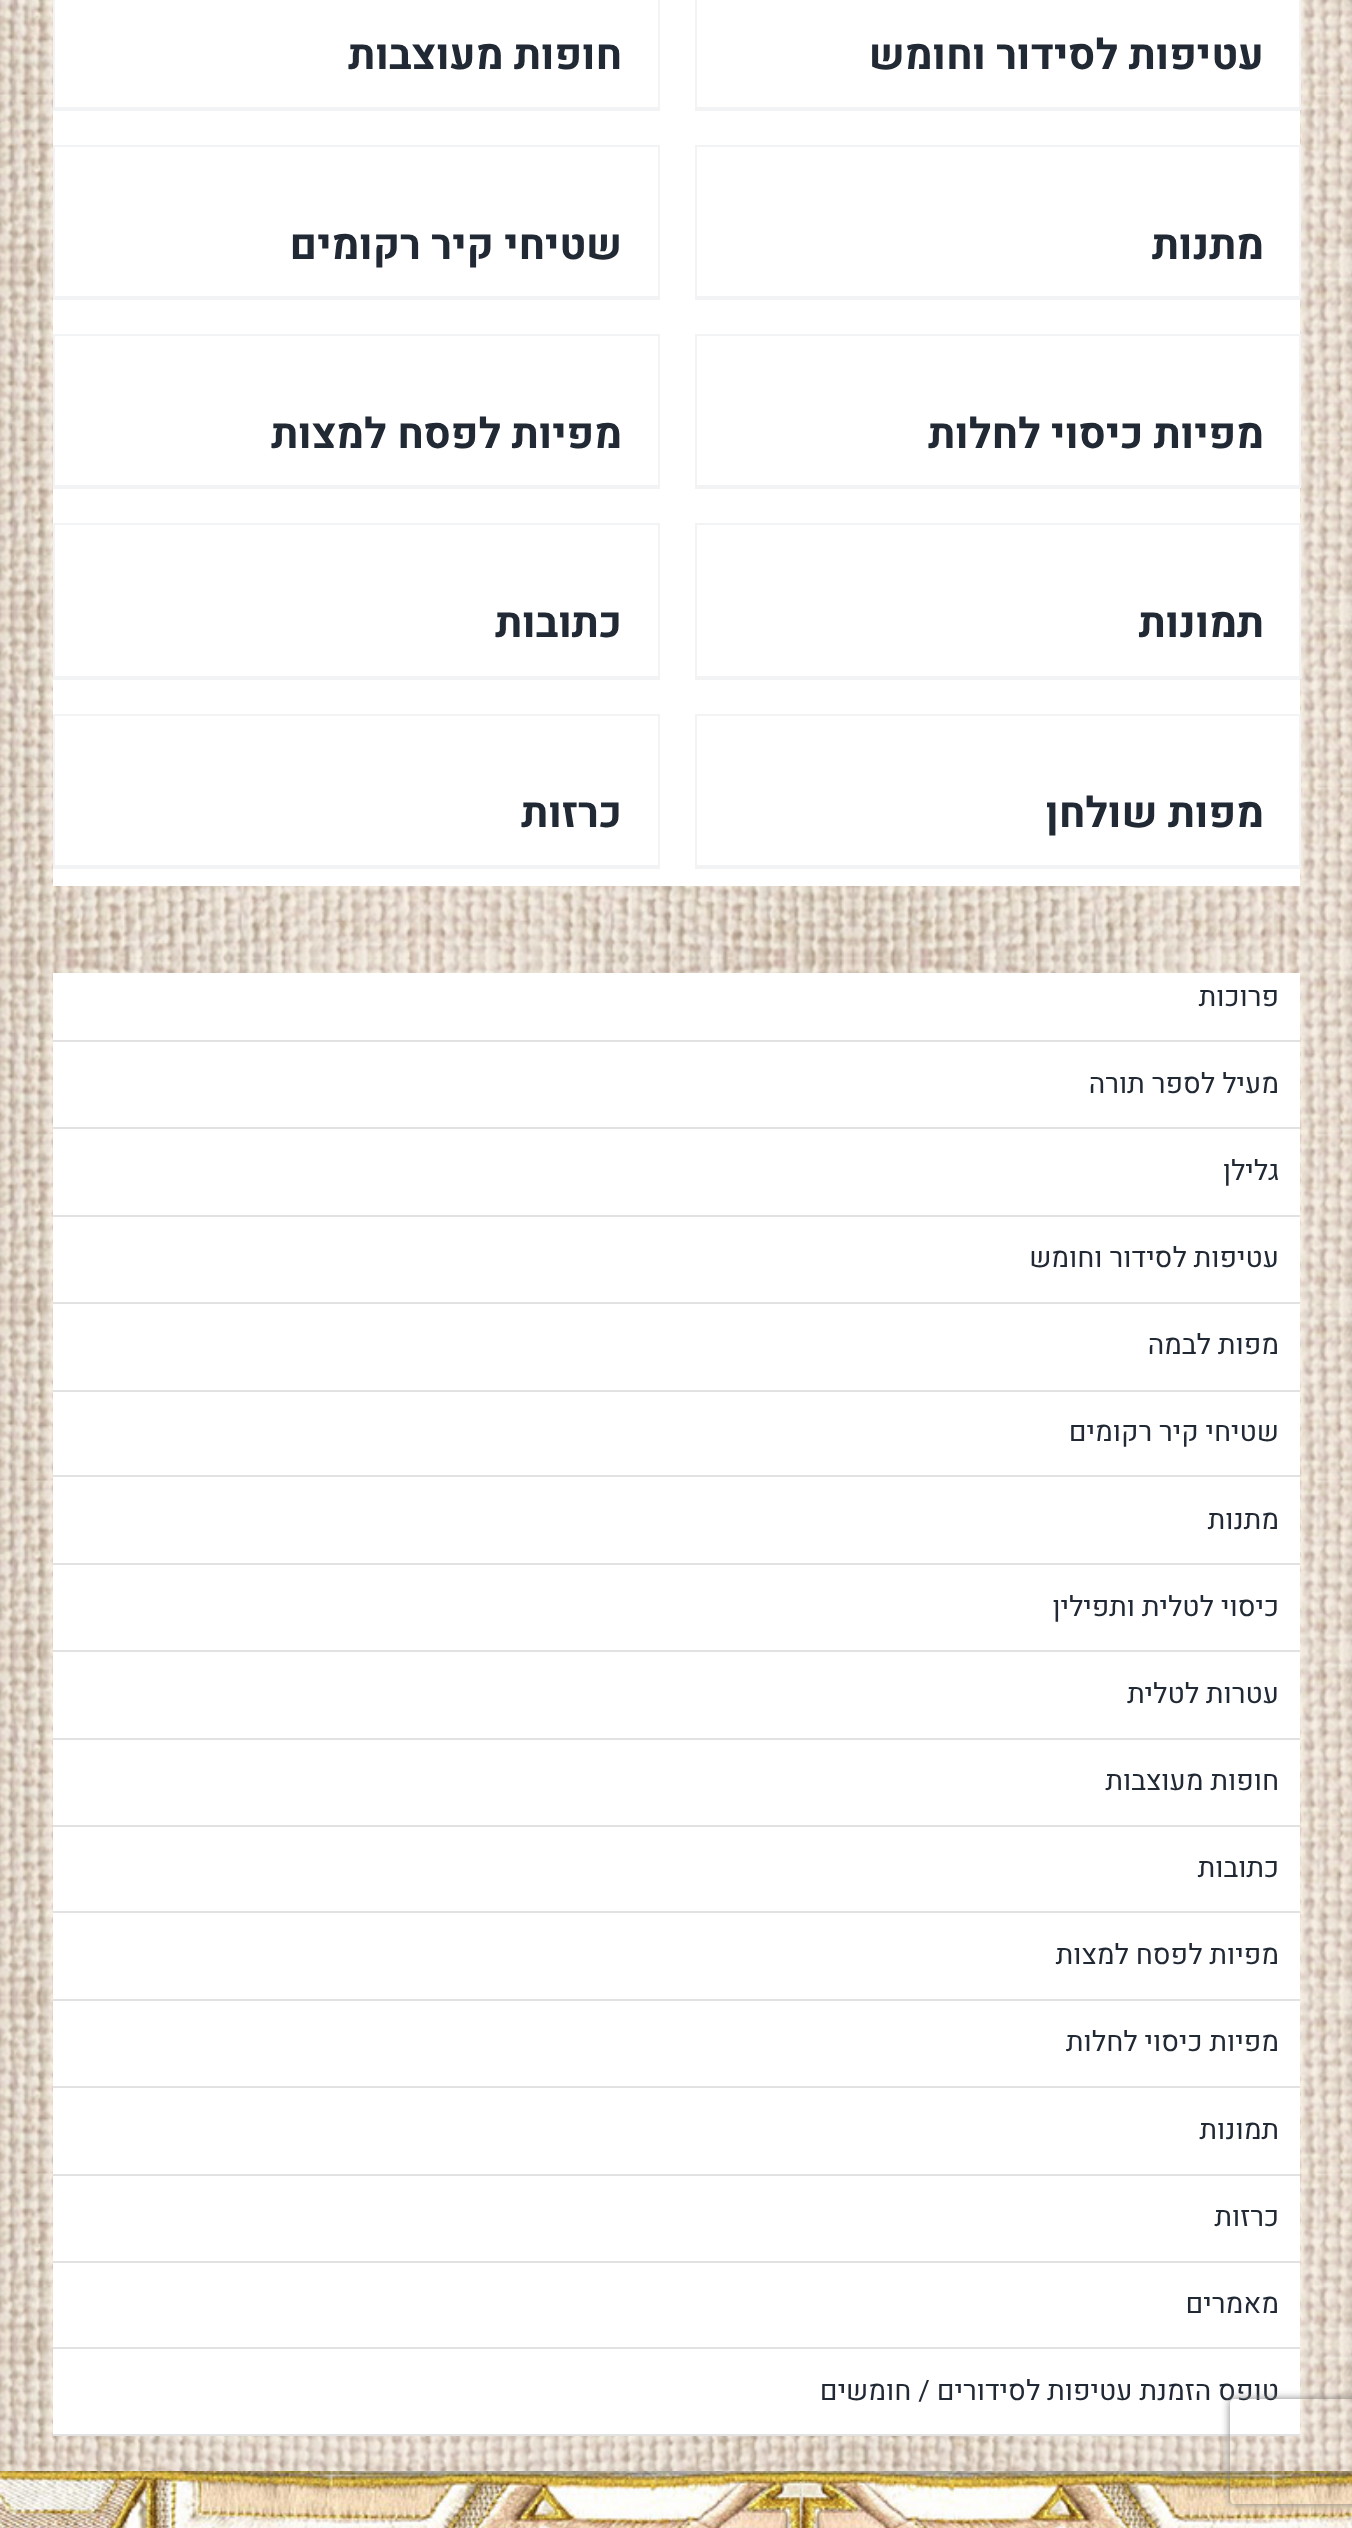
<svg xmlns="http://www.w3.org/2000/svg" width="1352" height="2528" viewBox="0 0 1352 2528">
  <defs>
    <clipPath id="clip1"><path d="M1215 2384H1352V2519H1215ZM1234 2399H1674C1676 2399 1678 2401 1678 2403V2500C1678 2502 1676 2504 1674 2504H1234C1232 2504 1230 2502 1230 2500V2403C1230 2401 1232 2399 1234 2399Z" clip-rule="evenodd"/></clipPath>
  </defs>
  <rect width="100%" height="100%" fill="rgb(255,255,255)"/>
  <image x="0" y="0" width="1352" height="2471" href="pic1.png"/>
  <rect x="53" y="0" width="1247" height="886" fill="rgb(255,255,255)"/>
  <rect x="1299" y="0" width="2" height="110" fill="rgb(242,243,245)"/>
  <rect x="695" y="107" width="605" height="4" fill="rgb(242,243,245)"/>
  <rect x="695" y="0" width="2" height="110" fill="rgb(242,243,245)"/>
  <text x="1264" y="69" font-family="Heebo" font-size="42" font-weight="bold" direction="rtl" fill="rgb(33,41,52)">עטיפות לסידור וחומש</text>
  <rect x="658" y="0" width="2" height="110" fill="rgb(242,243,245)"/>
  <rect x="53" y="107" width="607" height="4" fill="rgb(242,243,245)"/>
  <rect x="53" y="0" width="2" height="110" fill="rgb(242,243,245)"/>
  <text x="622" y="69" font-family="Heebo" font-size="42" font-weight="bold" direction="rtl" fill="rgb(33,41,52)">חופות מעוצבות</text>
  <rect x="695" y="145" width="605" height="2" fill="rgb(242,243,245)"/>
  <rect x="1299" y="145" width="2" height="154" fill="rgb(242,243,245)"/>
  <rect x="695" y="296" width="605" height="4" fill="rgb(242,243,245)"/>
  <rect x="695" y="145" width="2" height="154" fill="rgb(242,243,245)"/>
  <text x="1264" y="259" font-family="Heebo" font-size="42" font-weight="bold" direction="rtl" fill="rgb(33,41,52)">מתנות</text>
  <rect x="53" y="145" width="607" height="2" fill="rgb(242,243,245)"/>
  <rect x="658" y="145" width="2" height="154" fill="rgb(242,243,245)"/>
  <rect x="53" y="296" width="607" height="4" fill="rgb(242,243,245)"/>
  <rect x="53" y="145" width="2" height="154" fill="rgb(242,243,245)"/>
  <text x="622" y="259" font-family="Heebo" font-size="42" font-weight="bold" direction="rtl" fill="rgb(33,41,52)">שטיחי קיר רקומים</text>
  <rect x="695" y="334" width="605" height="2" fill="rgb(242,243,245)"/>
  <rect x="1299" y="334" width="2" height="154" fill="rgb(242,243,245)"/>
  <rect x="695" y="485" width="605" height="4" fill="rgb(242,243,245)"/>
  <rect x="695" y="334" width="2" height="154" fill="rgb(242,243,245)"/>
  <text x="1264" y="448" font-family="Heebo" font-size="42" font-weight="bold" direction="rtl" fill="rgb(33,41,52)">מפיות כיסוי לחלות</text>
  <rect x="53" y="334" width="607" height="2" fill="rgb(242,243,245)"/>
  <rect x="658" y="334" width="2" height="154" fill="rgb(242,243,245)"/>
  <rect x="53" y="485" width="607" height="4" fill="rgb(242,243,245)"/>
  <rect x="53" y="334" width="2" height="154" fill="rgb(242,243,245)"/>
  <text x="622" y="448" font-family="Heebo" font-size="42" font-weight="bold" direction="rtl" fill="rgb(33,41,52)">מפיות לפסח למצות</text>
  <rect x="695" y="523" width="605" height="2" fill="rgb(242,243,245)"/>
  <rect x="1299" y="523" width="2" height="156" fill="rgb(242,243,245)"/>
  <rect x="695" y="676" width="605" height="4" fill="rgb(242,243,245)"/>
  <rect x="695" y="523" width="2" height="156" fill="rgb(242,243,245)"/>
  <text x="1264" y="637" font-family="Heebo" font-size="42" font-weight="bold" direction="rtl" fill="rgb(33,41,52)">תמונות</text>
  <rect x="53" y="523" width="607" height="2" fill="rgb(242,243,245)"/>
  <rect x="658" y="523" width="2" height="156" fill="rgb(242,243,245)"/>
  <rect x="53" y="676" width="607" height="4" fill="rgb(242,243,245)"/>
  <rect x="53" y="523" width="2" height="156" fill="rgb(242,243,245)"/>
  <text x="622" y="637" font-family="Heebo" font-size="42" font-weight="bold" direction="rtl" fill="rgb(33,41,52)">כתובות</text>
  <rect x="695" y="714" width="605" height="2" fill="rgb(242,243,245)"/>
  <rect x="1299" y="714" width="2" height="154" fill="rgb(242,243,245)"/>
  <rect x="695" y="865" width="605" height="4" fill="rgb(242,243,245)"/>
  <rect x="695" y="714" width="2" height="154" fill="rgb(242,243,245)"/>
  <text x="1264" y="827" font-family="Heebo" font-size="42" font-weight="bold" direction="rtl" fill="rgb(33,41,52)">מפות שולחן</text>
  <rect x="53" y="714" width="607" height="2" fill="rgb(242,243,245)"/>
  <rect x="658" y="714" width="2" height="154" fill="rgb(242,243,245)"/>
  <rect x="53" y="865" width="607" height="4" fill="rgb(242,243,245)"/>
  <rect x="53" y="714" width="2" height="154" fill="rgb(242,243,245)"/>
  <text x="622" y="827" font-family="Heebo" font-size="42" font-weight="bold" direction="rtl" fill="rgb(33,41,52)">כרזות</text>
  <rect x="53" y="973" width="1247" height="1461" fill="rgb(255,255,255)"/>
  <rect x="53" y="1040" width="1247" height="2" fill="rgb(226,226,226)"/>
  <text x="1279" y="1006" font-family="Heebo" font-size="28" direction="rtl" fill="rgb(33,41,52)">פרוכות</text>
  <rect x="53" y="1127" width="1247" height="2" fill="rgb(226,226,226)"/>
  <text x="1279" y="1093" font-family="Heebo" font-size="28" direction="rtl" fill="rgb(33,41,52)">מעיל לספר תורה</text>
  <rect x="53" y="1215" width="1247" height="2" fill="rgb(226,226,226)"/>
  <text x="1279" y="1180" font-family="Heebo" font-size="28" direction="rtl" fill="rgb(33,41,52)">גלילן</text>
  <rect x="53" y="1302" width="1247" height="2" fill="rgb(226,226,226)"/>
  <text x="1279" y="1267" font-family="Heebo" font-size="28" direction="rtl" fill="rgb(33,41,52)">עטיפות לסידור וחומש</text>
  <rect x="53" y="1390" width="1247" height="2" fill="rgb(226,226,226)"/>
  <text x="1279" y="1354" font-family="Heebo" font-size="28" direction="rtl" fill="rgb(33,41,52)">מפות לבמה</text>
  <rect x="53" y="1475" width="1247" height="2" fill="rgb(226,226,226)"/>
  <text x="1279" y="1441" font-family="Heebo" font-size="28" direction="rtl" fill="rgb(33,41,52)">שטיחי קיר רקומים</text>
  <rect x="53" y="1563" width="1247" height="2" fill="rgb(226,226,226)"/>
  <text x="1279" y="1529" font-family="Heebo" font-size="28" direction="rtl" fill="rgb(33,41,52)">מתנות</text>
  <rect x="53" y="1650" width="1247" height="2" fill="rgb(226,226,226)"/>
  <text x="1279" y="1616" font-family="Heebo" font-size="28" direction="rtl" fill="rgb(33,41,52)">כיסוי לטלית ותפילין</text>
  <rect x="53" y="1738" width="1247" height="2" fill="rgb(226,226,226)"/>
  <text x="1279" y="1703" font-family="Heebo" font-size="28" direction="rtl" fill="rgb(33,41,52)">עטרות לטלית</text>
  <rect x="53" y="1825" width="1247" height="2" fill="rgb(226,226,226)"/>
  <text x="1279" y="1790" font-family="Heebo" font-size="28" direction="rtl" fill="rgb(33,41,52)">חופות מעוצבות</text>
  <rect x="53" y="1911" width="1247" height="2" fill="rgb(226,226,226)"/>
  <text x="1279" y="1877" font-family="Heebo" font-size="28" direction="rtl" fill="rgb(33,41,52)">כתובות</text>
  <rect x="53" y="1999" width="1247" height="2" fill="rgb(226,226,226)"/>
  <text x="1279" y="1964" font-family="Heebo" font-size="28" direction="rtl" fill="rgb(33,41,52)">מפיות לפסח למצות</text>
  <rect x="53" y="2086" width="1247" height="2" fill="rgb(226,226,226)"/>
  <text x="1279" y="2051" font-family="Heebo" font-size="28" direction="rtl" fill="rgb(33,41,52)">מפיות כיסוי לחלות</text>
  <rect x="53" y="2174" width="1247" height="2" fill="rgb(226,226,226)"/>
  <text x="1279" y="2139" font-family="Heebo" font-size="28" direction="rtl" fill="rgb(33,41,52)">תמונות</text>
  <rect x="53" y="2261" width="1247" height="2" fill="rgb(226,226,226)"/>
  <text x="1279" y="2226" font-family="Heebo" font-size="28" direction="rtl" fill="rgb(33,41,52)">כרזות</text>
  <rect x="53" y="2347" width="1247" height="2" fill="rgb(226,226,226)"/>
  <text x="1279" y="2313" font-family="Heebo" font-size="28" direction="rtl" fill="rgb(33,41,52)">מאמרים</text>
  <rect x="53" y="2434" width="1247" height="2" fill="rgb(226,226,226)"/>
  <text x="1279" y="2400" font-family="Heebo" font-size="28" direction="rtl" fill="rgb(33,41,52)">טופס הזמנת עטיפות לסידורים / חומשים</text>
  <image x="0" y="2471" width="1352" height="57" href="pic2.png"/>
  <g clip-path="url(#clip1)">
    <rect x="1230" y="2399" width="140" height="105" rx="4" fill="rgb(128,128,128)" filter="blur(4.5px)"/>
  </g>
</svg>
